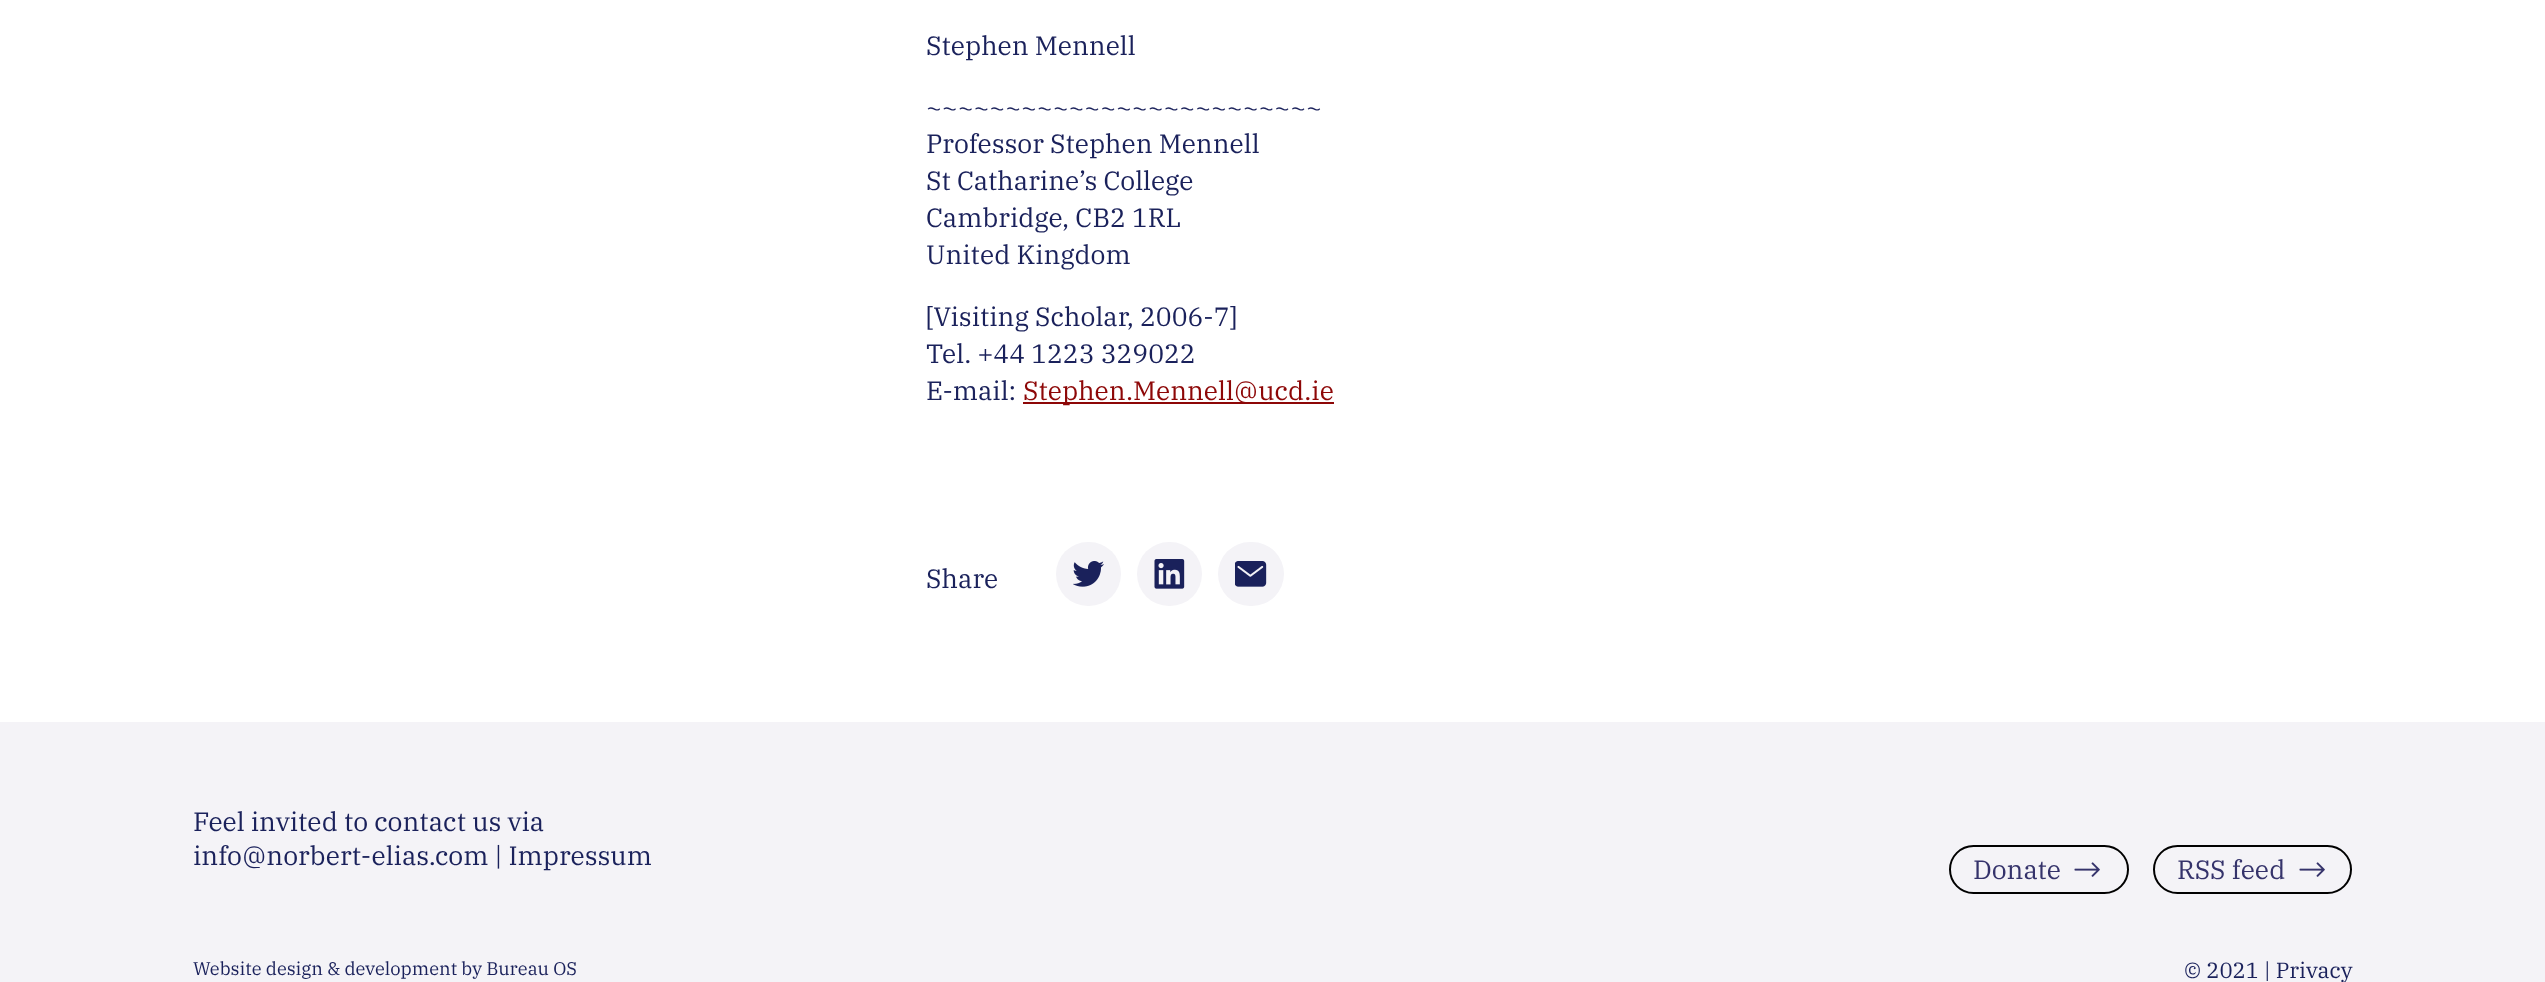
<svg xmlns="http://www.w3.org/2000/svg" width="2545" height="982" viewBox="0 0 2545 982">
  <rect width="100%" height="100%" fill="rgb(255,255,255)"/>
  <g font-family="IBM Plex Serif" font-size="26.4" fill="rgb(26,33,91)">
    <text x="926" y="55">Stephen Mennell</text>
    <text>
      <tspan x="926" y="117">~~~~~~~~~~~~~~~~~~~~~~~~~</tspan>
      <tspan x="926" y="153">Professor Stephen Mennell</tspan>
      <tspan x="926" y="190">St Catharine’s College</tspan>
      <tspan x="926" y="227">Cambridge, CB2 1RL</tspan>
      <tspan x="926" y="264">United Kingdom</tspan>
    </text>
    <text>
      <tspan x="926" y="326">[Visiting Scholar, 2006-7]</tspan>
      <tspan x="926" y="363">Tel. +44 1223 329022</tspan>
      <tspan x="926" y="400">E-mail:</tspan>
    </text>
  </g>
  <rect x="1023" y="402" width="311" height="2" fill="rgb(141,7,7)"/>
  <text x="1023" y="400" font-family="IBM Plex Serif" font-size="26.4" fill="rgb(141,7,7)">Stephen.Mennell@ucd.ie</text>
  <text x="926" y="588" font-family="IBM Plex Serif" font-size="26.4" fill="rgb(26,33,91)">Share</text>
  <rect x="1056" y="542" width="65" height="64" rx="32" fill="rgb(244,243,247)"/>
  <image x="1073" y="561" width="31" height="26" href="pic1.png"/>
  <rect x="1137" y="542" width="65" height="64" rx="32" fill="rgb(244,243,247)"/>
  <image x="1154" y="559" width="31" height="30" href="pic2.png"/>
  <rect x="1218" y="542" width="66" height="64" rx="32" fill="rgb(244,243,247)"/>
  <image x="1235" y="561" width="32" height="26" href="pic3.png"/>
  <rect x="0" y="722" width="2545" height="260" fill="rgb(244,243,247)"/>
  <g font-family="IBM Plex Serif" font-size="26.4" fill="rgb(26,33,91)">
    <text>
      <tspan x="193" y="831">Feel invited to contact us via</tspan>
      <tspan x="193" y="865">info@norbert-elias.com | Impressum</tspan>
    </text>
  </g>
  <rect x="1950" y="846" width="178" height="47" rx="23.5" fill="none" stroke="rgb(0,0,0)" stroke-width="2"/>
  <text x="1973" y="879" font-family="IBM Plex Serif" font-size="26.4" fill="rgb(53,51,107)">Donate</text>
  <image x="2074" y="862" width="26" height="15" href="pic4.png"/>
  <rect x="2154" y="846" width="197" height="47" rx="23.5" fill="none" stroke="rgb(0,0,0)" stroke-width="2"/>
  <text x="2177" y="879" font-family="IBM Plex Serif" font-size="26.4" fill="rgb(53,51,107)">RSS feed</text>
  <image x="2299" y="862" width="26" height="15" href="pic4.png"/>
  <text x="193" y="975" font-family="IBM Plex Serif" font-size="18.3" fill="rgb(26,33,91)">Website design &amp; development by Bureau OS</text>
  <text x="2184" y="978" font-family="IBM Plex Serif" font-size="22" fill="rgb(26,33,91)">© 2021 | Privacy</text>
</svg>
